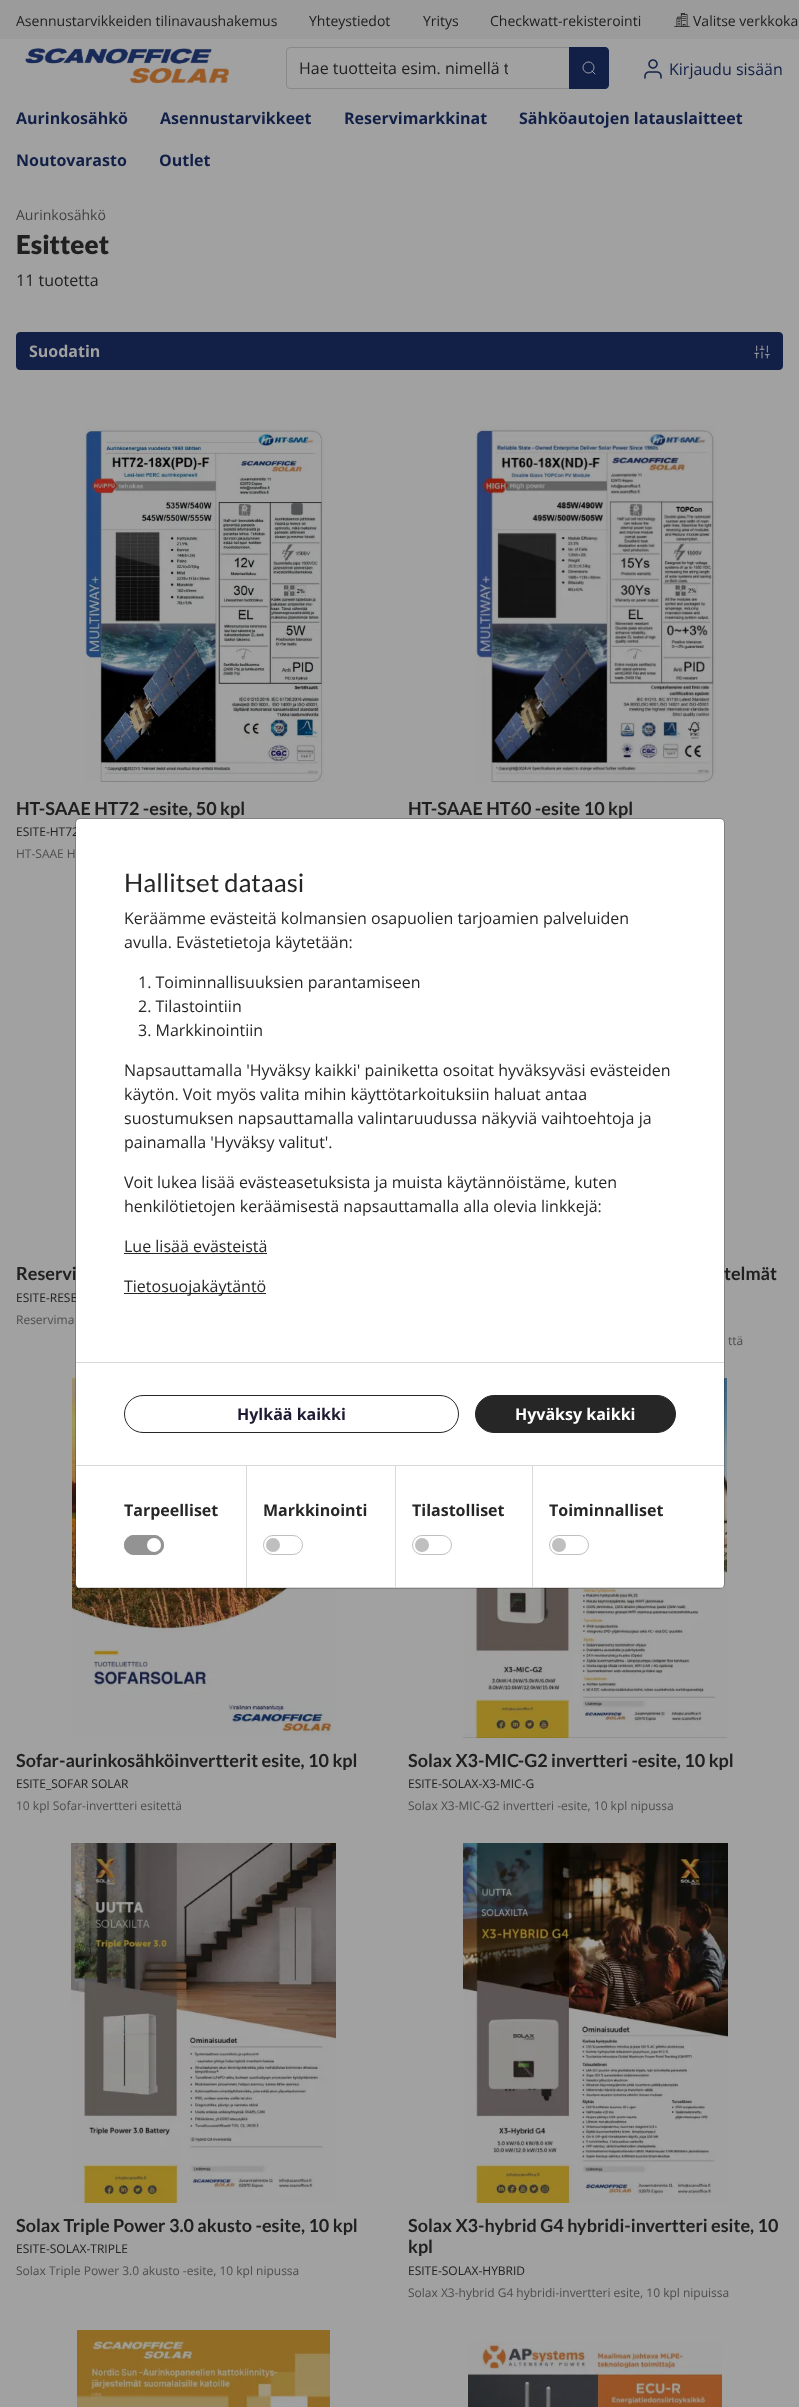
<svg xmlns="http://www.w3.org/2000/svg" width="799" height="2407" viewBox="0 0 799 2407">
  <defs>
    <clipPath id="clip1"><rect x="299" y="57" width="209" height="22"/></clipPath>
    <clipPath id="clip2"><rect x="76" y="819" width="648" height="769" rx="4"/></clipPath>
  </defs>
  <rect width="100%" height="100%" fill="rgb(161,161,161)"/>
  <rect x="0" y="0" width="799" height="39" fill="rgb(155,155,155)"/>
  <g font-family="'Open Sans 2'" font-size="14" fill="rgb(32,32,32)">
    <text x="16" y="26">Asennustarvikkeiden tilinavaushakemus</text>
    <text x="309" y="26">Yhteystiedot</text>
    <text x="423" y="26">Yritys</text>
    <text x="490" y="26">Checkwatt-rekisterointi</text>
  </g>
  <image x="674" y="13" width="16" height="14" href="pic1.png"/>
  <text x="693" y="26" font-family="'Open Sans 2'" font-size="14" fill="rgb(32,32,32)">Valitse verkkoka</text>
  <image x="25" y="48" width="205" height="36" href="pic2.png"/>
  <rect x="286.5" y="47.5" width="322" height="41" rx="3.5" fill="none" stroke="rgb(137,137,137)"/>
  <g clip-path="url(#clip1)">
    <text x="299" y="74" font-family="'Open Sans 2'" font-size="16" fill="rgb(32,32,32)">Hae tuotteita esim. nimellä t</text>
  </g>
  <path d="M569 47H605C607 47 609 49 609 51V85C609 87 607 89 605 89H569Z" fill="rgb(18,32,71)"/>
  <circle cx="588.5" cy="67.5" r="5.5" fill="none" stroke="rgb(161,161,161)"/>
  <path d="M595 74L592 71" fill="none" stroke="rgb(161,161,161)" stroke-linecap="round" stroke-linejoin="round"/>
  <image x="644" y="59" width="18" height="20" href="pic3.png"/>
  <text x="669" y="75" font-family="'Open Sans 2'" font-size="16" fill="rgb(18,32,71)">Kirjaudu sisään</text>
  <g font-family="Open Sans" font-size="16" font-weight="bold" fill="rgb(18,32,71)">
    <text x="16" y="124">Aurinkosähkö</text>
    <text x="160" y="124">Asennustarvikkeet</text>
    <text x="344" y="124">Reservimarkkinat</text>
    <text x="519" y="124">Sähköautojen latauslaitteet</text>
    <text x="16" y="166">Noutovarasto</text>
    <text x="159" y="166">Outlet</text>
  </g>
  <text x="16" y="220" font-family="Open Sans" font-size="14" fill="rgb(66,66,66)">Aurinkosähkö</text>
  <text x="16" y="254" font-family="Lato" font-size="26" font-weight="900" fill="rgb(32,32,32)">Esitteet</text>
  <text x="16" y="286" font-family="Open Sans" font-size="16" fill="rgb(32,32,32)">11 tuotetta</text>
  <rect x="16.5" y="332.5" width="766" height="37" rx="3.5" fill="rgb(18,32,71)" stroke="rgb(18,32,71)"/>
  <text x="29" y="357" font-family="Open Sans" font-size="16" font-weight="bold" fill="rgb(161,161,161)">Suodatin</text>
  <image x="754" y="345" width="16" height="14" href="pic4.png"/>
  <image x="85" y="428" width="239" height="354" href="pic5.png"/>
  <text x="16" y="815" font-family="Lato" font-size="18" font-weight="bold" fill="rgb(32,32,32)">HT-SAAE HT72 -esite, 50 kpl</text>
  <text x="16" y="836" font-family="Open Sans" font-size="12" fill="rgb(32,32,32)">ESITE-HT72</text>
  <text x="16" y="858" font-family="Open Sans" font-size="12" fill="rgb(77,77,77)">HT-SAAE H</text>
  <image x="476" y="426" width="240" height="357" href="pic6.png"/>
  <g font-family="Lato" font-size="18" font-weight="bold" fill="rgb(32,32,32)">
    <text x="408" y="815">HT-SAAE HT60 -esite 10 kpl</text>
    <text x="16" y="1280">Reservi</text>
  </g>
  <text x="16" y="1302" font-family="Open Sans" font-size="12" fill="rgb(32,32,32)">ESITE-RESE</text>
  <text x="16" y="1324" font-family="Open Sans" font-size="12" fill="rgb(77,77,77)">Reservima</text>
  <text x="724" y="1280" font-family="Lato" font-size="18" font-weight="bold" fill="rgb(32,32,32)">telmät</text>
  <text x="728" y="1345" font-family="Open Sans" font-size="12" fill="rgb(77,77,77)">ttä</text>
  <image x="72" y="1378" width="264" height="357" href="pic7.png"/>
  <text x="16" y="1767" font-family="Lato" font-size="18" font-weight="bold" fill="rgb(32,32,32)">Sofar-aurinkosähköinvertterit esite, 10 kpl</text>
  <text x="16" y="1788" font-family="Open Sans" font-size="12" fill="rgb(32,32,32)">ESITE_SOFAR SOLAR</text>
  <text x="16" y="1810" font-family="Open Sans" font-size="12" fill="rgb(77,77,77)">10 kpl Sofar-invertteri esitettä</text>
  <image x="463" y="1378" width="264" height="360" href="pic8.png"/>
  <text x="408" y="1767" font-family="Lato" font-size="18" font-weight="bold" fill="rgb(32,32,32)">Solax X3-MIC-G2 invertteri -esite, 10 kpl</text>
  <text x="408" y="1788" font-family="Open Sans" font-size="12" fill="rgb(32,32,32)">ESITE-SOLAX-X3-MIC-G</text>
  <text x="408" y="1810" font-family="Open Sans" font-size="12" fill="rgb(77,77,77)">Solax X3-MIC-G2 invertteri -esite, 10 kpl nipussa</text>
  <image x="71" y="1843" width="265" height="360" href="pic9.png"/>
  <text x="16" y="2232" font-family="Lato" font-size="18" font-weight="bold" fill="rgb(32,32,32)">Solax Triple Power 3.0 akusto -esite, 10 kpl</text>
  <text x="16" y="2253" font-family="Open Sans" font-size="12" fill="rgb(32,32,32)">ESITE-SOLAX-TRIPLE</text>
  <text x="16" y="2275" font-family="Open Sans" font-size="12" fill="rgb(77,77,77)">Solax Triple Power 3.0 akusto -esite, 10 kpl nipussa</text>
  <image x="463" y="1843" width="265" height="360" href="pic10.png"/>
  <g font-family="Lato" font-size="18" font-weight="bold" fill="rgb(32,32,32)">
    <text>
      <tspan x="408" y="2232">Solax X3-hybrid G4 hybridi-invertteri esite, 10</tspan>
      <tspan x="408" y="2253">kpl</tspan>
    </text>
  </g>
  <text x="408" y="2275" font-family="Open Sans" font-size="12" fill="rgb(32,32,32)">ESITE-SOLAX-HYBRID</text>
  <text x="408" y="2297" font-family="Open Sans" font-size="12" fill="rgb(77,77,77)">Solax X3-hybrid G4 hybridi-invertteri esite, 10 kpl nipuissa</text>
  <image x="77" y="2330" width="253" height="77" href="pic11.png"/>
  <image x="468" y="2341" width="254" height="66" href="pic12.png"/>
  <rect x="76" y="819" width="648" height="769" rx="4" fill="rgb(255,255,255)"/>
  <rect x="75.5" y="818.5" width="649" height="770" rx="4.5" fill="none" stroke="rgba(0,0,0,0.2)"/>
  <text x="124" y="892" font-family="Lato" font-size="25.5" fill="rgb(38,38,38)">Hallitset dataasi</text>
  <g font-family="'Open Sans 2'" font-size="16" fill="rgb(38,38,38)">
    <text>
      <tspan x="124" y="924">Keräämme evästeitä kolmansien osapuolien tarjoamien palveluiden</tspan>
      <tspan x="124" y="948">avulla. Evästetietoja käytetään:</tspan>
    </text>
    <text>
      <tspan x="138" y="988">1. Toiminnallisuuksien parantamiseen</tspan>
      <tspan x="138" y="1012">2. Tilastointiin</tspan>
      <tspan x="138" y="1036">3. Markkinointiin</tspan>
    </text>
    <text>
      <tspan x="124" y="1076">Napsauttamalla 'Hyväksy kaikki' painiketta osoitat hyväksyväsi evästeiden</tspan>
      <tspan x="124" y="1100">käytön. Voit myös valita mihin käyttötarkoituksiin haluat antaa</tspan>
      <tspan x="124" y="1124">suostumuksen napsauttamalla valintaruudussa näkyviä vaihtoehtoja ja</tspan>
      <tspan x="124" y="1148">painamalla 'Hyväksy valitut'.</tspan>
    </text>
    <text>
      <tspan x="124" y="1188">Voit lukea lisää evästeasetuksista ja muista käytännöistäme, kuten</tspan>
      <tspan x="124" y="1212">henkilötietojen keräämisestä napsauttamalla alla olevia linkkejä:</tspan>
    </text>
    <text x="124" y="1252">Lue lisää evästeistä</text>
  </g>
  <rect x="124" y="1253" width="143" height="1" fill="rgb(38,38,38)"/>
  <rect x="124" y="1293" width="142" height="1" fill="rgb(38,38,38)"/>
  <text x="124" y="1292" font-family="'Open Sans 2'" font-size="16" fill="rgb(38,38,38)">Tietosuojakäytäntö</text>
  <rect x="76" y="1362" width="648" height="1" fill="rgb(217,217,217)"/>
  <rect x="124.5" y="1395.5" width="334" height="37" rx="18.5" fill="none" stroke="rgb(38,38,38)"/>
  <text x="237" y="1420" font-family="Open Sans" font-size="16" font-weight="bold" fill="rgb(30,26,51)">Hylkää kaikki</text>
  <rect x="475.5" y="1395.5" width="200" height="37" rx="18.5" fill="rgb(38,38,38)" stroke="rgb(38,38,38)"/>
  <text x="515" y="1420" font-family="Open Sans" font-size="16" font-weight="bold" fill="rgb(255,255,255)">Hyväksy kaikki</text>
  <rect x="76" y="1465" width="648" height="1" fill="rgb(217,217,217)"/>
  <g clip-path="url(#clip2)">
    <rect x="76" y="1587" width="648" height="1" fill="rgb(217,217,217)"/>
  </g>
  <rect x="246" y="1466" width="1" height="121" fill="rgb(217,217,217)"/>
  <text x="124" y="1516" font-family="Open Sans" font-size="16" font-weight="bold" fill="rgb(38,38,38)">Tarpeelliset</text>
  <rect x="124" y="1535" width="40" height="20" rx="10" fill="rgb(147,147,147)"/>
  <circle cx="154" cy="1545" r="7" fill="rgb(255,255,255)"/>
  <rect x="124.5" y="1535.5" width="39" height="19" rx="9.5" fill="none" stroke="rgb(147,147,147)"/>
  <rect x="395" y="1466" width="1" height="121" fill="rgb(217,217,217)"/>
  <text x="263" y="1516" font-family="Open Sans" font-size="16" font-weight="bold" fill="rgb(38,38,38)">Markkinointi</text>
  <circle cx="273" cy="1545" r="7" fill="rgb(191,191,191)"/>
  <rect x="263.5" y="1535.5" width="39" height="19" rx="9.5" fill="none" stroke="rgb(191,191,191)"/>
  <rect x="532" y="1466" width="1" height="121" fill="rgb(217,217,217)"/>
  <text x="412" y="1516" font-family="Open Sans" font-size="16" font-weight="bold" fill="rgb(38,38,38)">Tilastolliset</text>
  <circle cx="422" cy="1545" r="7" fill="rgb(191,191,191)"/>
  <rect x="412.5" y="1535.5" width="39" height="19" rx="9.5" fill="none" stroke="rgb(191,191,191)"/>
  <text x="549" y="1516" font-family="Open Sans" font-size="16" font-weight="bold" fill="rgb(38,38,38)">Toiminnalliset</text>
  <circle cx="559" cy="1545" r="7" fill="rgb(191,191,191)"/>
  <rect x="549.5" y="1535.5" width="39" height="19" rx="9.5" fill="none" stroke="rgb(191,191,191)"/>
</svg>
